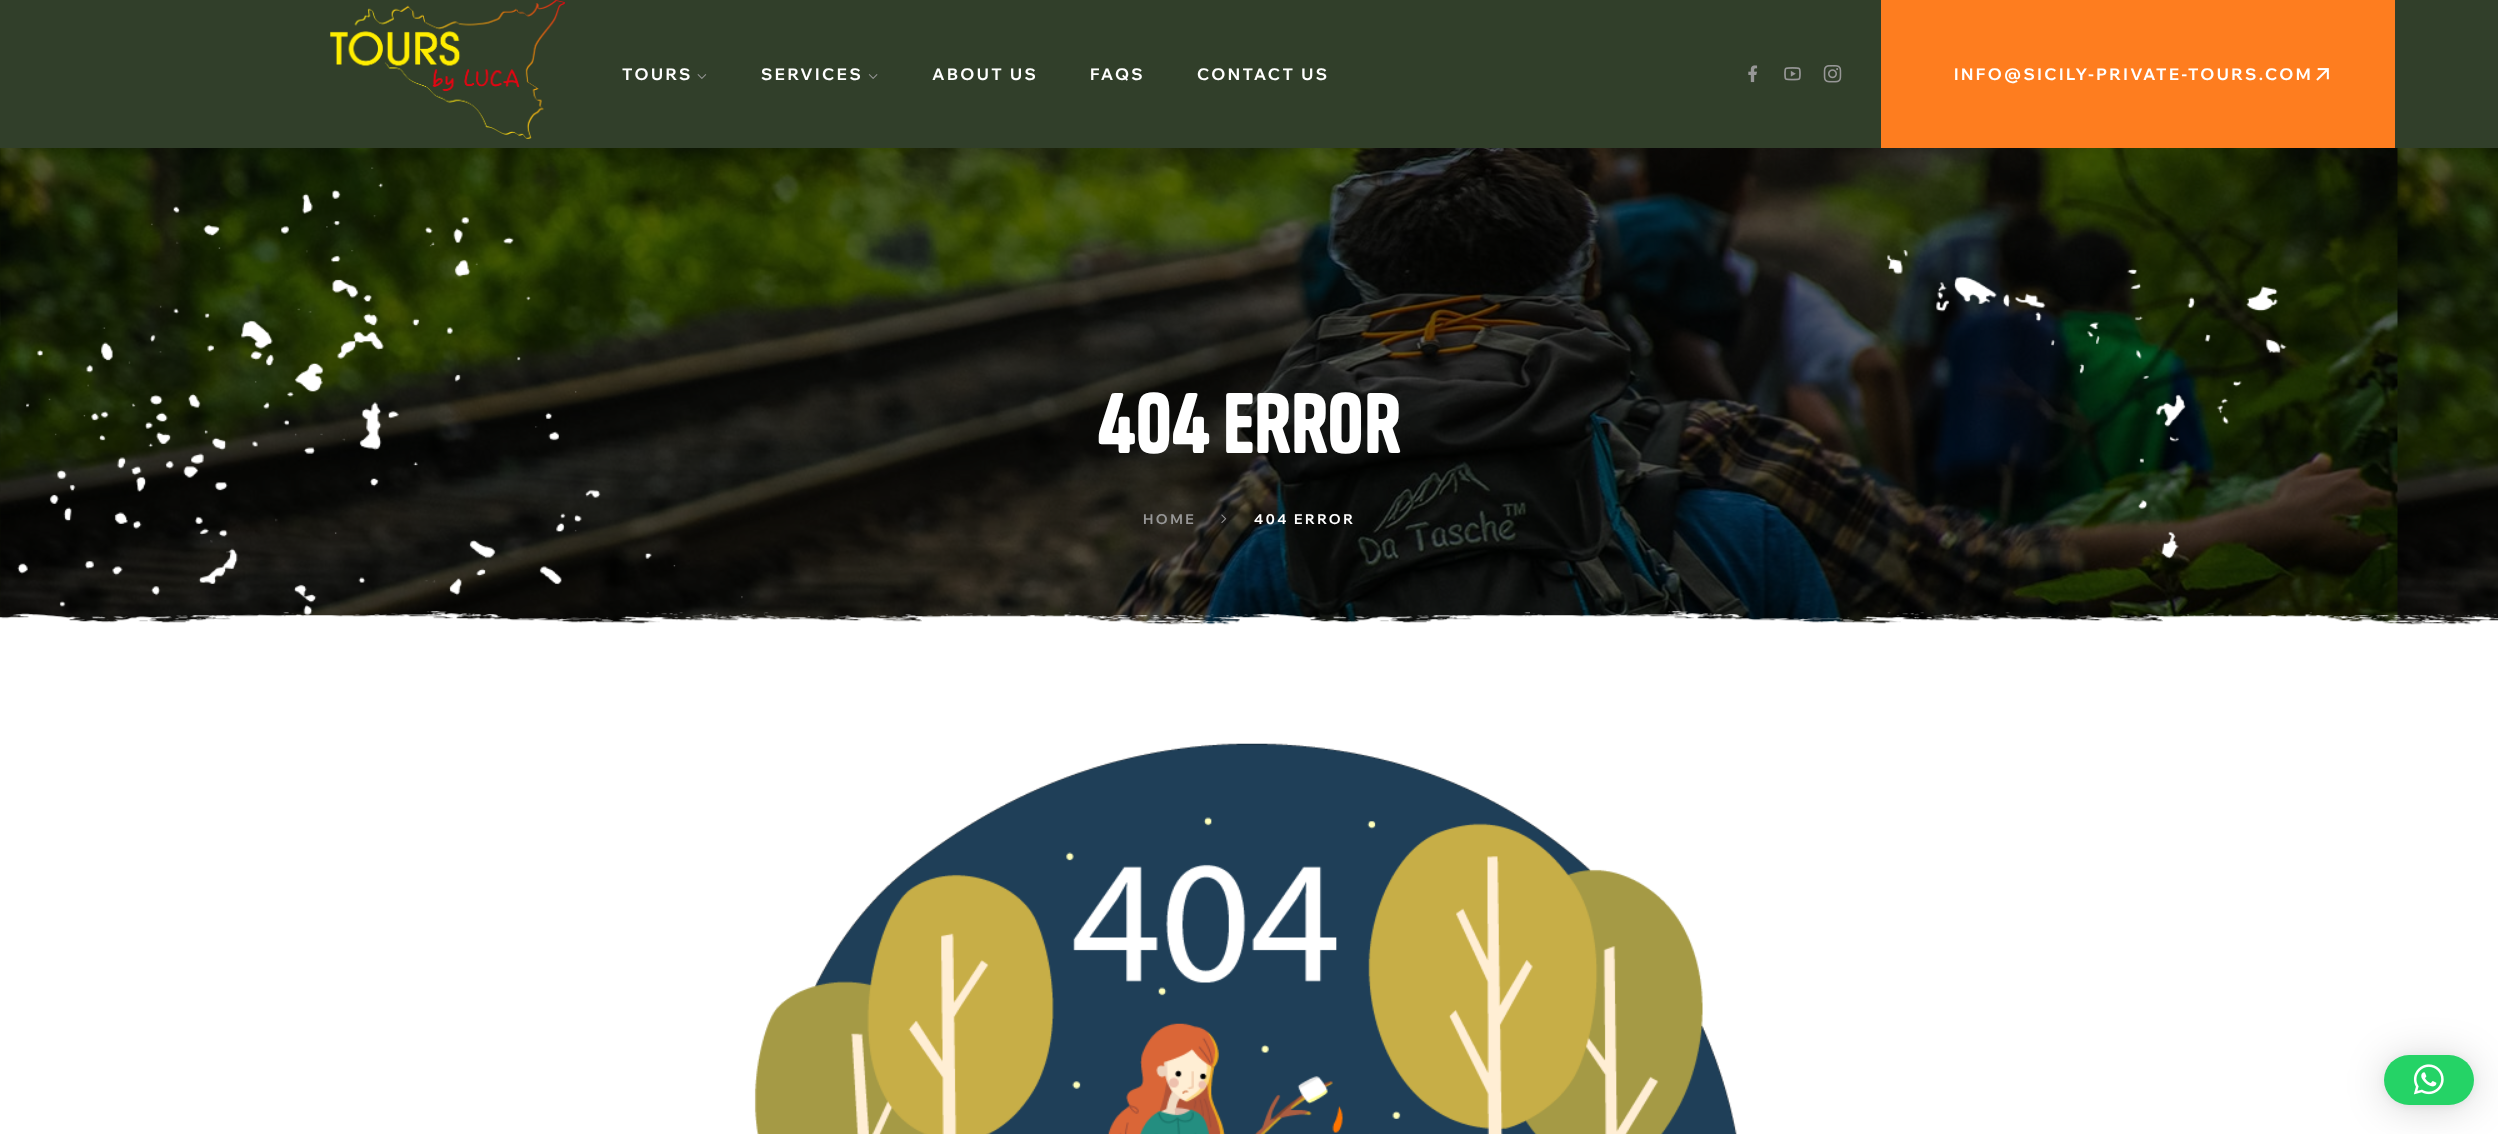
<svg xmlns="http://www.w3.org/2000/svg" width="2498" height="1134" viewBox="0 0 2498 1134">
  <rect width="100%" height="100%" fill="rgb(255,255,255)"/>
  <rect x="0" y="0" width="2498" height="148" fill="rgb(49,63,42)"/>
  <image x="330" y="0" width="235" height="139" href="pic1.png"/>
  <text x="622" y="80" font-family="Wix Madefor Display" font-size="16.25" font-weight="bold" letter-spacing="2.5" fill="rgb(255,255,255)">TOURS</text>
  <image x="697" y="74" width="10" height="5" href="pic2.png"/>
  <text x="761" y="80" font-family="Wix Madefor Display" font-size="16.25" font-weight="bold" letter-spacing="2.5" fill="rgb(255,255,255)">SERVICES</text>
  <image x="868" y="74" width="10" height="5" href="pic3.png"/>
  <g font-family="Wix Madefor Display" font-size="16.25" font-weight="bold" letter-spacing="2.5" fill="rgb(255,255,255)">
    <text x="932" y="80">ABOUT US</text>
    <text x="1090" y="80">FAQS</text>
    <text x="1197" y="80">CONTACT US</text>
  </g>
  <image x="1748" y="65" width="10" height="18" href="pic4.png"/>
  <image x="1784" y="67" width="17" height="14" href="pic5.png"/>
  <image x="1823" y="65" width="19" height="18" href="pic6.png"/>
  <rect x="1881" y="0" width="514" height="148" fill="rgb(254,125,31)"/>
  <text x="1954" y="80" font-family="Wix Madefor Display" font-size="16.25" font-weight="bold" letter-spacing="2.5" fill="rgb(255,255,255)">INFO@SICILY-PRIVATE-TOURS.COM</text>
  <image x="2316" y="68" width="13" height="13" href="pic7.png"/>
  <image x="0" y="148" width="2498" height="477" href="pic8.png"/>
  <image x="17" y="167" width="748" height="453" href="pic9.png"/>
  <text x="1098" y="453" font-family="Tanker" font-size="80" fill="rgb(255,255,255)">404 error</text>
  <image x="1887" y="250" width="400" height="309" href="pic10.png"/>
  <text x="1143" y="524" font-family="Wix Madefor Display" font-size="13.75" font-weight="bold" letter-spacing="2.5" fill="rgb(151,151,151)">HOME</text>
  <image x="1221" y="514" width="6" height="9" href="pic11.png"/>
  <text x="1254" y="524" font-family="Wix Madefor Display" font-size="13.75" font-weight="bold" letter-spacing="2.5" fill="rgb(255,255,255)">404 ERROR</text>
  <image x="0" y="611" width="2498" height="24" href="pic12.png"/>
  <image x="754" y="743" width="983" height="391" href="pic13.png"/>
  <rect x="2384" y="1058" width="90" height="50" rx="25" fill="rgba(0,0,0,0.16)" filter="blur(20px)"/>
  <rect x="2384" y="1056" width="90" height="50" rx="25" fill="rgba(0,0,0,0.06)" filter="blur(4px)"/>
  <rect x="2384" y="1055" width="90" height="50" rx="25" fill="rgb(37,211,102)"/>
  <image x="2413" y="1064" width="31" height="31" href="pic14.png"/>
</svg>
